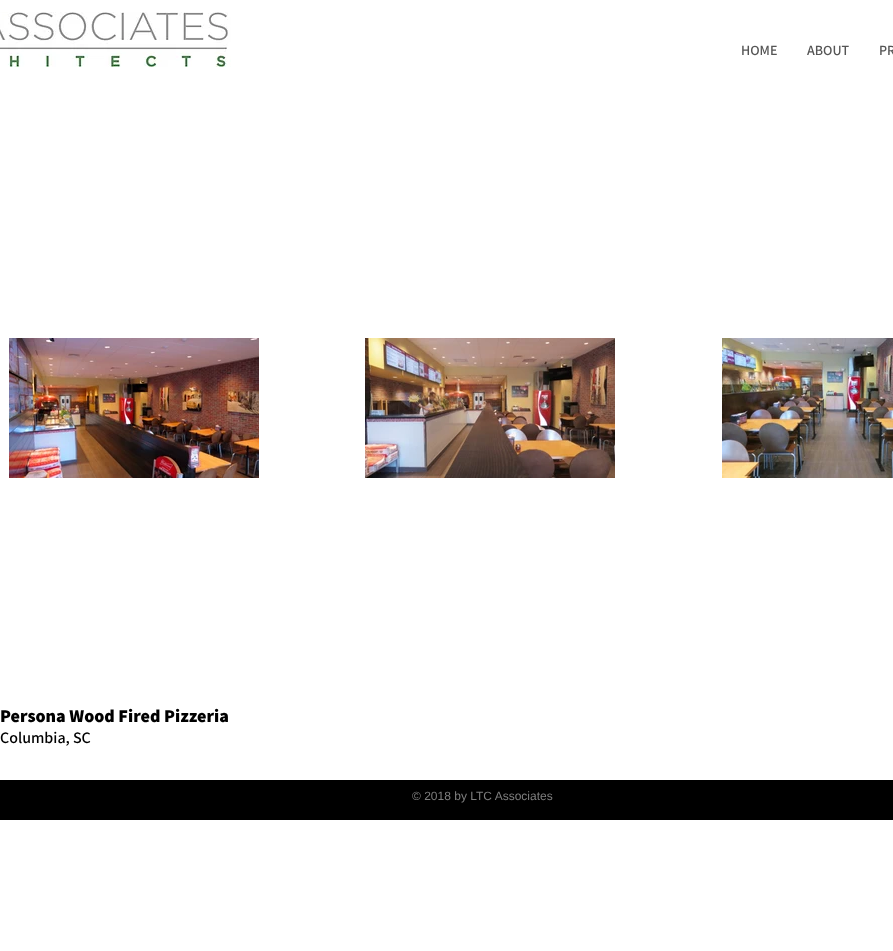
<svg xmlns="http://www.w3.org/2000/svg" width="893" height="951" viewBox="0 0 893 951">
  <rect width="100%" height="100%" fill="rgb(255,255,255)"/>
  <image x="0" y="12" width="231" height="55" href="pic1.png"/>
  <g font-family="Assistant" font-size="14" font-weight="600" fill="rgb(85,85,85)">
    <text x="741" y="55">HOME</text>
    <text x="807" y="55">ABOUT</text>
    <text x="879" y="55">PR</text>
  </g>
  <image x="9" y="338" width="250" height="140" href="pic2.png"/>
  <image x="365" y="338" width="250" height="140" href="pic3.png"/>
  <image x="722" y="338" width="171" height="140" href="pic4.png"/>
  <text x="0" y="722" font-family="Assistant" font-size="18" font-weight="800" fill="rgb(0,0,0)">Persona Wood Fired Pizzeria</text>
  <text x="0" y="743" font-family="Assistant" font-size="16" font-weight="600" fill="rgb(0,0,0)">Columbia, SC</text>
  <rect x="0" y="780" width="893" height="40" fill="rgb(0,0,0)"/>
  <text x="412" y="800" font-family="Liberation Sans" font-size="12" fill="rgb(127,127,127)">© 2018 by LTC Associates</text>
</svg>
